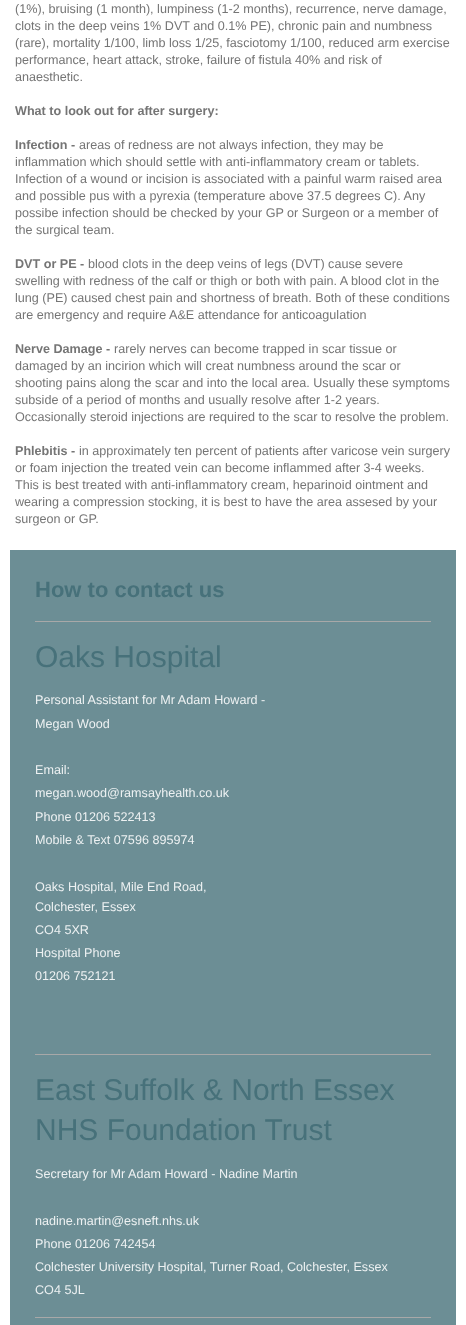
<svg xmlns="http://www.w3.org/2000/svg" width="466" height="1325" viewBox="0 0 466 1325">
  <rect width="100%" height="100%" fill="rgb(255,255,255)"/>
  <g font-family="Liberation Sans" font-size="12.6" fill="rgb(117,117,117)">
    <text>
      <tspan x="15" y="13">(1%), bruising (1 month), lumpiness (1-2 months), recurrence, nerve damage,</tspan>
      <tspan x="15" y="30">clots in the deep veins 1% DVT and 0.1% PE), chronic pain and numbness</tspan>
      <tspan x="15" y="47">(rare), mortality 1/100, limb loss 1/25, fasciotomy 1/100, reduced arm exercise</tspan>
      <tspan x="15" y="64">performance, heart attack, stroke, failure of fistula 40% and risk of</tspan>
      <tspan x="15" y="81">anaesthetic.</tspan>
    </text>
  </g>
  <g font-family="Liberation Sans" font-size="12.6" font-weight="bold" fill="rgb(117,117,117)">
    <text x="15" y="115">What to look out for after surgery:</text>
    <text x="15" y="149">Infection -</text>
  </g>
  <g font-family="Liberation Sans" font-size="12.6" fill="rgb(117,117,117)">
    <text x="79" y="149">areas of redness are not always infection, they may be</text>
    <text>
      <tspan x="15" y="166">inflammation which should settle with anti-inflammatory cream or tablets.</tspan>
      <tspan x="15" y="183">Infection of a wound or incision is associated with a painful warm raised area</tspan>
      <tspan x="15" y="200">and possible pus with a pyrexia (temperature above 37.5 degrees C). Any</tspan>
      <tspan x="15" y="217">possibe infection should be checked by your GP or Surgeon or a member of</tspan>
      <tspan x="15" y="234">the surgical team.</tspan>
    </text>
  </g>
  <text x="15" y="268" font-family="Liberation Sans" font-size="12.6" font-weight="bold" fill="rgb(117,117,117)">DVT or PE -</text>
  <g font-family="Liberation Sans" font-size="12.6" fill="rgb(117,117,117)">
    <text x="88" y="268">blood clots in the deep veins of legs (DVT) cause severe</text>
    <text>
      <tspan x="15" y="285">swelling with redness of the calf or thigh or both with pain. A blood clot in the</tspan>
      <tspan x="15" y="302">lung (PE) caused chest pain and shortness of breath. Both of these conditions</tspan>
      <tspan x="15" y="319">are emergency and require A&amp;E attendance for anticoagulation</tspan>
    </text>
  </g>
  <text x="15" y="353" font-family="Liberation Sans" font-size="12.6" font-weight="bold" fill="rgb(117,117,117)">Nerve Damage -</text>
  <g font-family="Liberation Sans" font-size="12.6" fill="rgb(117,117,117)">
    <text x="114" y="353">rarely nerves can become trapped in scar tissue or</text>
    <text>
      <tspan x="15" y="370">damaged by an incirion which will creat numbness around the scar or</tspan>
      <tspan x="15" y="387">shooting pains along the scar and into the local area. Usually these symptoms</tspan>
      <tspan x="15" y="404">subside of a period of months and usually resolve after 1-2 years.</tspan>
      <tspan x="15" y="421">Occasionally steroid injections are required to the scar to resolve the problem.</tspan>
    </text>
  </g>
  <text x="15" y="455" font-family="Liberation Sans" font-size="12.6" font-weight="bold" fill="rgb(117,117,117)">Phlebitis -</text>
  <g font-family="Liberation Sans" font-size="12.6" fill="rgb(117,117,117)">
    <text x="79" y="455">in approximately ten percent of patients after varicose vein surgery</text>
    <text>
      <tspan x="15" y="472">or foam injection the treated vein can become inflammed after 3-4 weeks.</tspan>
      <tspan x="15" y="489">This is best treated with anti-inflammatory cream, heparinoid ointment and</tspan>
      <tspan x="15" y="506">wearing a compression stocking, it is best to have the area assesed by your</tspan>
      <tspan x="15" y="523">surgeon or GP.</tspan>
    </text>
  </g>
  <rect x="10" y="550" width="446" height="775" fill="rgb(108,142,149)"/>
  <text x="35" y="597" font-family="Liberation Sans" font-size="22" font-weight="bold" fill="rgb(71,113,122)">How to contact us</text>
  <rect x="35" y="621" width="396" height="1" fill="rgb(168,168,168)"/>
  <text x="35" y="667" font-family="Liberation Sans" font-size="30" fill="rgb(71,113,122)">Oaks Hospital</text>
  <g font-family="Liberation Sans" font-size="12.6" fill="rgb(237,241,242)">
    <text>
      <tspan x="35" y="704">Personal Assistant for Mr Adam Howard -</tspan>
      <tspan x="35" y="728">Megan Wood</tspan>
    </text>
    <text>
      <tspan x="35" y="774">Email:</tspan>
      <tspan x="35" y="797">megan.wood@ramsayhealth.co.uk</tspan>
      <tspan x="35" y="821">Phone 01206 522413</tspan>
      <tspan x="35" y="844">Mobile &amp; Text 07596 895974</tspan>
    </text>
    <text>
      <tspan x="35" y="891">Oaks Hospital, Mile End Road,</tspan>
      <tspan x="35" y="911">Colchester, Essex</tspan>
      <tspan x="35" y="934">CO4 5XR</tspan>
      <tspan x="35" y="957">Hospital Phone</tspan>
      <tspan x="35" y="980">01206 752121</tspan>
    </text>
  </g>
  <rect x="35" y="1054" width="396" height="1" fill="rgb(168,168,168)"/>
  <g font-family="Liberation Sans" font-size="30" fill="rgb(71,113,122)">
    <text>
      <tspan x="35" y="1100">East Suffolk &amp; North Essex</tspan>
      <tspan x="35" y="1140">NHS Foundation Trust</tspan>
    </text>
  </g>
  <g font-family="Liberation Sans" font-size="12.6" fill="rgb(237,241,242)">
    <text x="35" y="1178">Secretary for Mr Adam Howard - Nadine Martin</text>
    <text>
      <tspan x="35" y="1225">nadine.martin@esneft.nhs.uk</tspan>
      <tspan x="35" y="1248">Phone 01206 742454</tspan>
      <tspan x="35" y="1271">Colchester University Hospital, Turner Road, Colchester, Essex</tspan>
      <tspan x="35" y="1294">CO4 5JL</tspan>
    </text>
  </g>
  <rect x="35" y="1317" width="396" height="1" fill="rgb(168,168,168)"/>
</svg>
